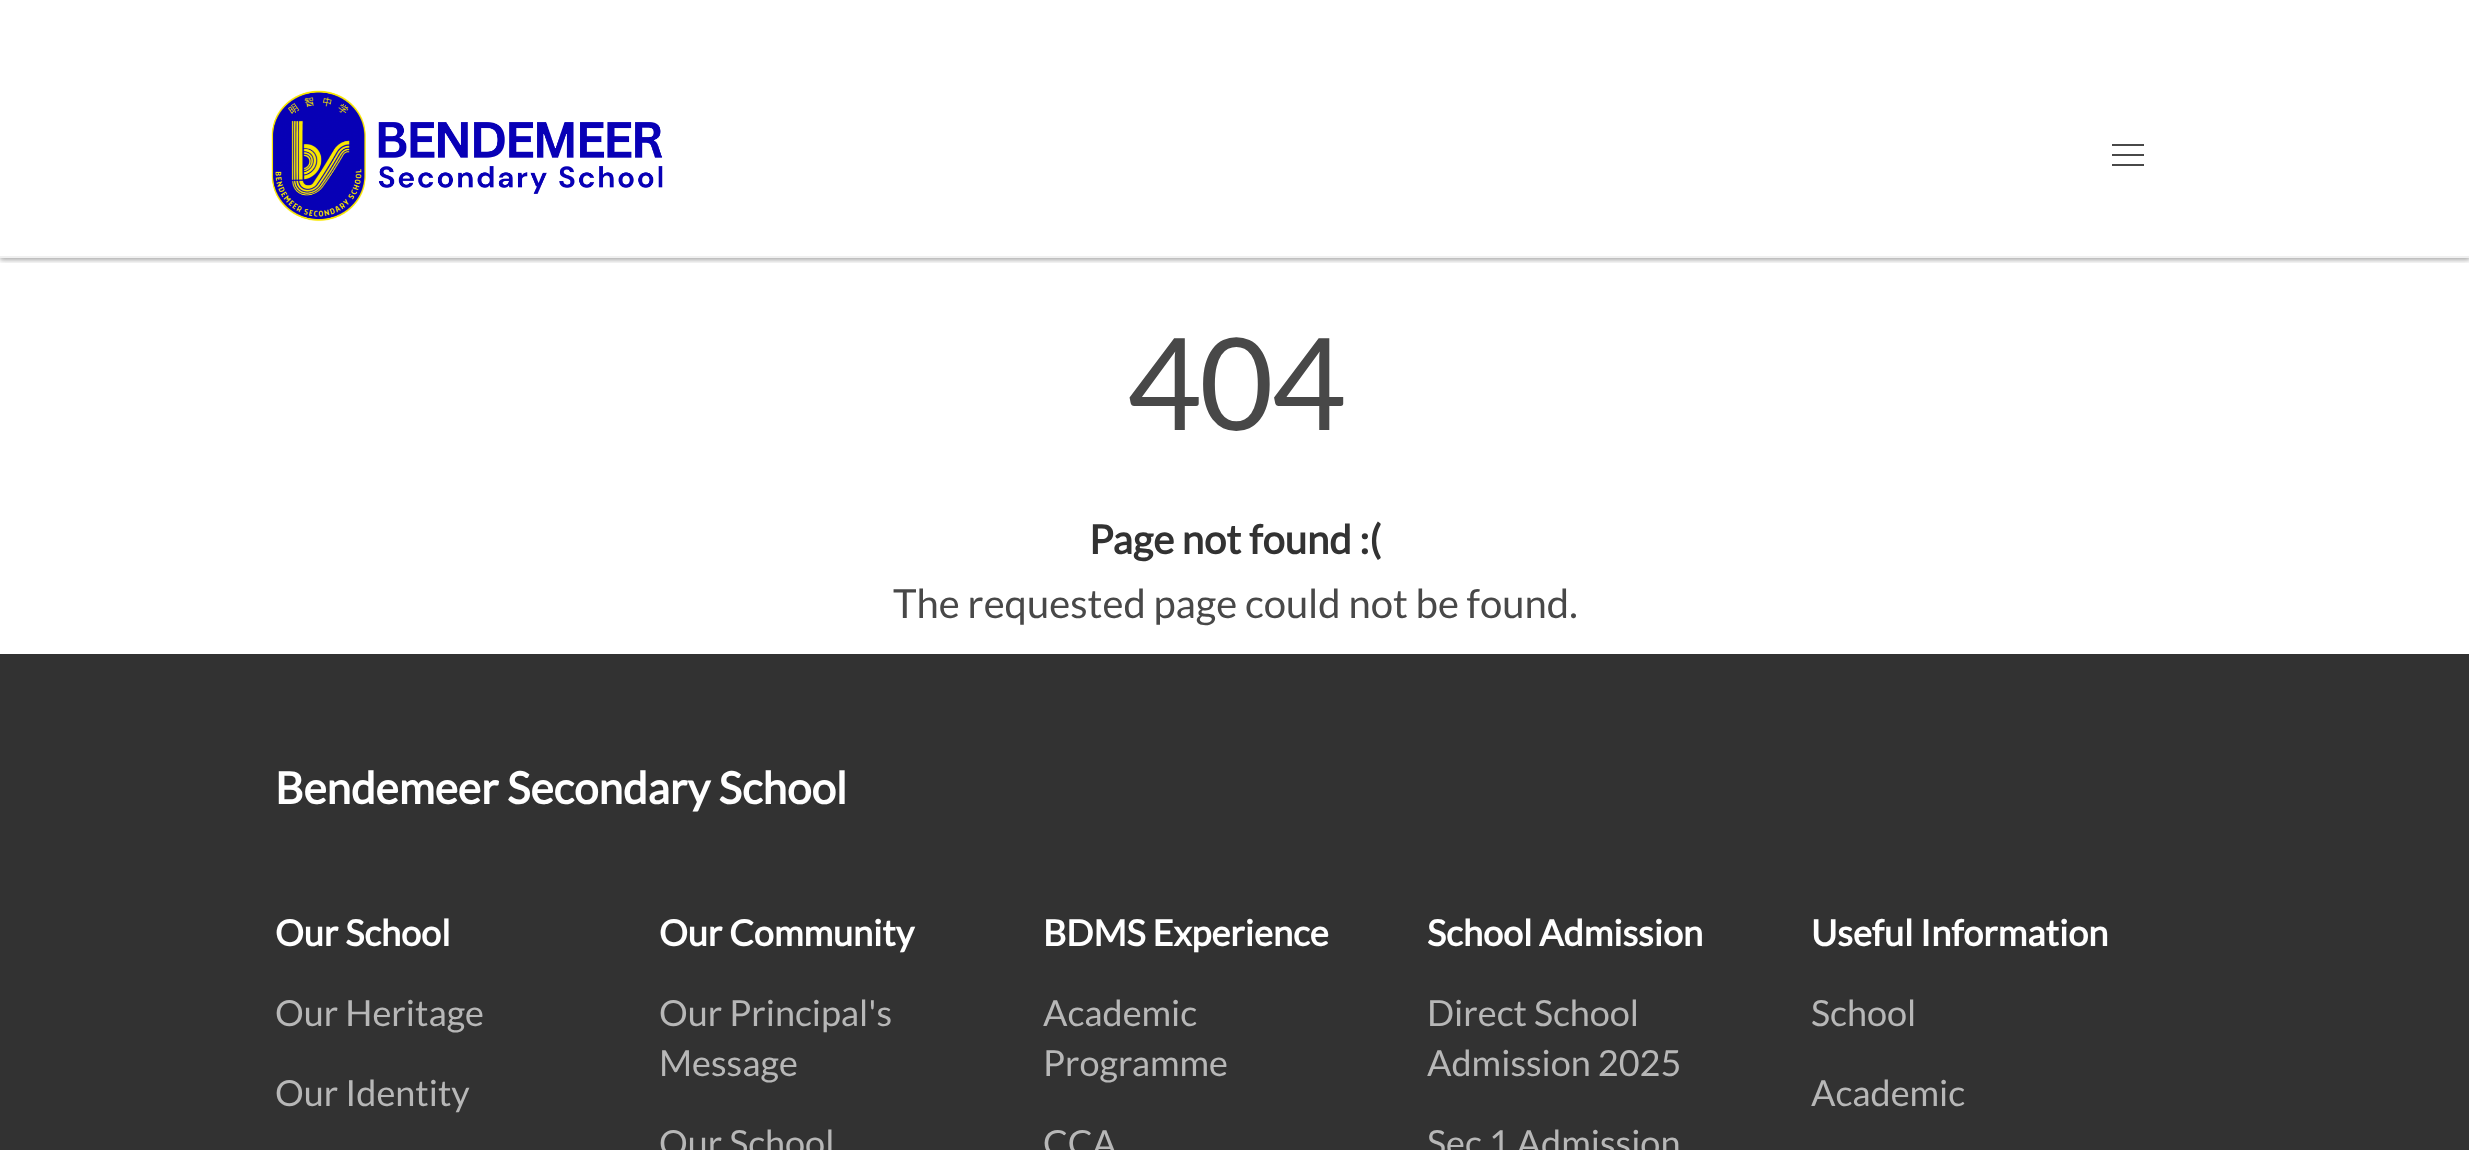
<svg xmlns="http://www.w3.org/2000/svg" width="2469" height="1150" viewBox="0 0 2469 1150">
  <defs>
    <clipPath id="clip1"><rect x="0" y="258" width="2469" height="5"/></clipPath>
  </defs>
  <rect width="100%" height="100%" fill="rgb(255,255,255)"/>
  <g clip-path="url(#clip1)">
    <rect x="0" y="-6" width="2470" height="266" fill="rgba(0,0,0,0.24)" filter="blur(2px)"/>
    <rect x="0" y="-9" width="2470" height="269" fill="rgba(0,0,0,0.12)" filter="blur(3px)"/>
  </g>
  <rect x="0" y="256" width="2469" height="2" fill="rgb(240,240,240)"/>
  <image x="271" y="90" width="392" height="132" href="pic1.png"/>
  <rect x="2112" y="144" width="32" height="2" fill="rgb(72,72,72)"/>
  <rect x="2112" y="154" width="32" height="2" fill="rgb(72,72,72)"/>
  <rect x="2112" y="164" width="32" height="2" fill="rgb(72,72,72)"/>
  <text x="1127" y="430" font-family="Lato" font-size="128" letter-spacing="-2" fill="rgb(72,72,72)">404</text>
  <text x="1089" y="554" font-family="Lato" font-size="40" font-weight="bold" fill="rgb(50,50,50)">Page not found :(</text>
  <text x="893" y="618" font-family="Lato" font-size="40" fill="rgb(72,72,72)">The requested page could not be found.</text>
  <rect x="0" y="654" width="2469" height="496" fill="rgb(50,50,50)"/>
  <text x="275" y="804" font-family="Lato" font-size="44" font-weight="bold" fill="rgb(255,255,255)">Bendemeer Secondary School</text>
  <text x="275" y="946" font-family="Lato" font-size="36" font-weight="bold" fill="rgb(255,255,255)">Our School</text>
  <g font-family="Lato" font-size="36" fill="rgb(183,183,183)">
    <text x="275" y="1026">Our Heritage</text>
    <text x="275" y="1106">Our Identity</text>
  </g>
  <text x="659" y="946" font-family="Lato" font-size="36" font-weight="bold" fill="rgb(255,255,255)">Our Community</text>
  <g font-family="Lato" font-size="36" fill="rgb(183,183,183)">
    <text>
      <tspan x="659" y="1026">Our Principal's</tspan>
      <tspan x="659" y="1076">Message</tspan>
    </text>
    <text x="659" y="1156">Our School</text>
  </g>
  <text x="1043" y="946" font-family="Lato" font-size="36" font-weight="bold" fill="rgb(255,255,255)">BDMS Experience</text>
  <g font-family="Lato" font-size="36" fill="rgb(183,183,183)">
    <text>
      <tspan x="1043" y="1026">Academic</tspan>
      <tspan x="1043" y="1076">Programme</tspan>
    </text>
    <text x="1043" y="1156">CCA</text>
  </g>
  <text x="1427" y="946" font-family="Lato" font-size="36" font-weight="bold" fill="rgb(255,255,255)">School Admission</text>
  <g font-family="Lato" font-size="36" fill="rgb(183,183,183)">
    <text>
      <tspan x="1427" y="1026">Direct School</tspan>
      <tspan x="1427" y="1076">Admission 2025</tspan>
    </text>
    <text x="1427" y="1156">Sec 1 Admission</text>
  </g>
  <text x="1811" y="946" font-family="Lato" font-size="36" font-weight="bold" fill="rgb(255,255,255)">Useful Information</text>
  <g font-family="Lato" font-size="36" fill="rgb(183,183,183)">
    <text x="1811" y="1026">School</text>
    <text x="1811" y="1106">Academic</text>
  </g>
</svg>
